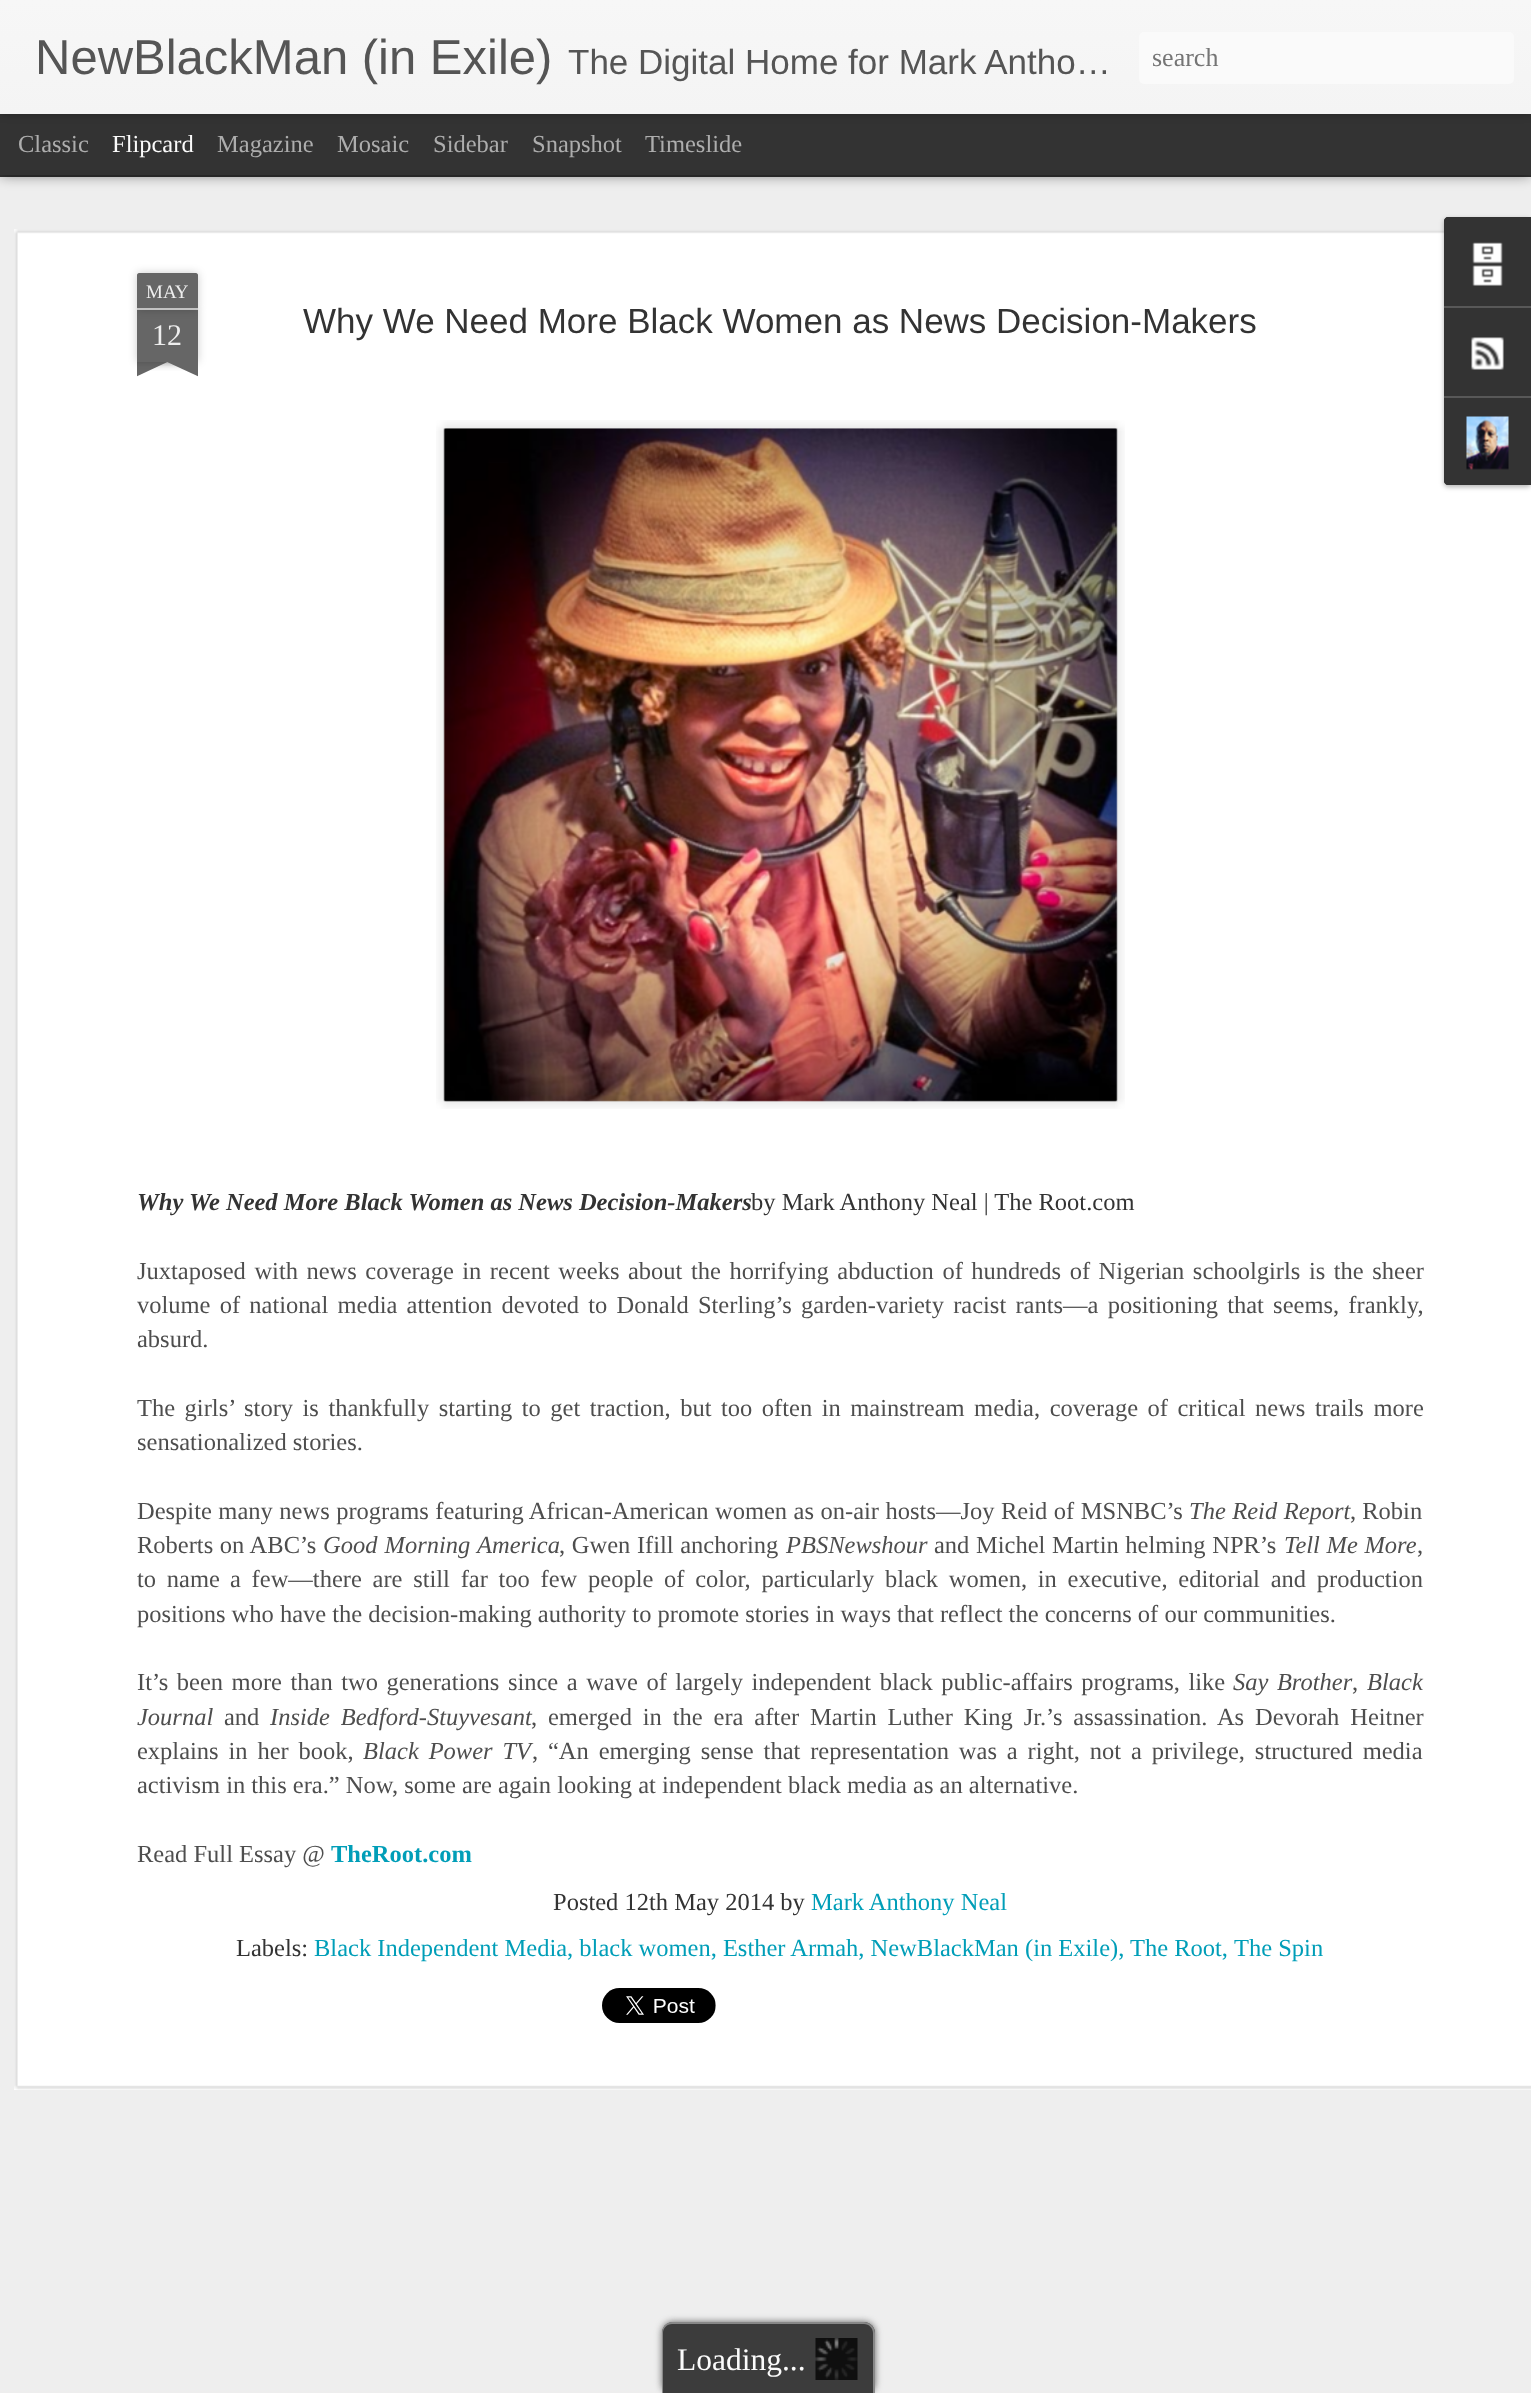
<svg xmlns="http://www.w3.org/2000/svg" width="1531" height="2393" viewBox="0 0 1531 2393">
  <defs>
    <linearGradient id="g1" gradientUnits="userSpaceOnUse" x1="0" y1="0" x2="0" y2="114"><stop offset="0" stop-color="rgb(247,247,247)"/><stop offset="1" stop-color="rgb(244,244,244)"/></linearGradient>
    <clipPath id="clip1"><rect x="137" y="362" width="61" height="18"/></clipPath>
    <clipPath id="clip2"><rect x="137" y="362" width="61" height="18"/></clipPath>
  </defs>
  <rect width="100%" height="100%" fill="rgb(51,51,51)"/>
  <rect x="0" y="177" width="1531" height="2216" fill="rgb(238,238,238)"/>
  <rect x="0" y="114" width="1531" height="61" fill="rgba(0,0,0,0.5)" filter="blur(7px)"/>
  <rect x="0" y="114" width="1531" height="61" fill="rgb(51,51,51)"/>
  <rect x="0" y="0" width="1531" height="114" fill="rgba(0,0,0,0.3)" filter="blur(4.5px)"/>
  <rect x="0" y="0" width="1531" height="114" fill="url(#g1)"/>
  <text x="35" y="74" font-family="Liberation Sans" font-size="49" fill="rgb(85,85,85)">NewBlackMan (in Exile)</text>
  <text x="568" y="74" font-family="Liberation Sans" font-size="35" fill="rgb(85,85,85)">The Digital Home for Mark Antho…</text>
  <rect x="1139" y="32" width="375" height="52" rx="5" fill="rgb(250,250,250)"/>
  <text x="1152" y="66" font-family="Liberation Serif" font-size="26" fill="rgb(117,117,117)">search</text>
  <text x="18" y="152" font-family="Liberation Serif" font-size="24.5" fill="rgb(173,173,173)">Classic</text>
  <text x="112" y="152" font-family="Liberation Serif" font-size="24.5" fill="rgb(251,251,251)">Flipcard</text>
  <g font-family="Liberation Serif" font-size="24.5" fill="rgb(173,173,173)">
    <text x="217" y="152">Magazine</text>
    <text x="337" y="152">Mosaic</text>
    <text x="433" y="152">Sidebar</text>
    <text x="532" y="152">Snapshot</text>
    <text x="645" y="152">Timeslide</text>
  </g>
  <rect x="14" y="229" width="1517" height="1861" fill="rgb(255,255,255)"/>
  <image x="14" y="229" width="1517" height="1861" href="pic1.png"/>
  <rect x="137" y="310" width="61" height="52" fill="rgba(0,0,0,0.2)" filter="blur(4.5px)"/>
  <rect x="137" y="310" width="61" height="52" fill="rgb(102,102,102)"/>
  <rect x="137" y="273" width="61" height="37" rx="2" fill="rgba(0,0,0,0.2)" filter="blur(4.5px)"/>
  <path d="M139 273H196C197 273 198 274 198 275V310H137V275C137 274 138 273 139 273Z" fill="rgb(102,102,102)"/>
  <rect x="137" y="308" width="61" height="2" fill="rgb(194,194,194)"/>
  <text x="146" y="298" font-family="Liberation Serif" font-size="19" fill="rgb(238,238,238)">MAY</text>
  <text x="152" y="345" font-family="Liberation Serif" font-size="30" fill="rgb(238,238,238)">12</text>
  <g clip-path="url(#clip1)">
    <rect x="121" y="345" width="87" height="17" fill="rgba(0,0,0,0.2)" filter="blur(4.5px)"/>
  </g>
  <g clip-path="url(#clip2)">
    <path d="M121 364L200 327L208 343L129 380Z" fill="rgb(102,102,102)"/>
  </g>
  <g clip-path="url(#clip1)">
    <rect x="126" y="345" width="88" height="17" fill="rgba(0,0,0,0.2)" filter="blur(4.5px)"/>
  </g>
  <g clip-path="url(#clip2)">
    <path d="M134 327L213 364L206 380L126 343Z" fill="rgb(102,102,102)"/>
  </g>
  <text x="303" y="333" font-family="Liberation Sans" font-size="35" fill="rgb(51,51,51)">Why We Need More Black Women as News Decision-Makers</text>
  <image x="436" y="420" width="689" height="689" href="pic2.png"/>
  <image x="443" y="428" width="675" height="674" href="pic3.png"/>
  <text x="137" y="1210" font-family="Liberation Serif" font-size="24.5" font-weight="bold" font-style="italic" fill="rgb(51,51,51)">Why We Need More Black Women as News Decision-Makers</text>
  <text x="751" y="1210" font-family="Liberation Serif" font-size="24.5" fill="rgb(51,51,51)">by Mark Anthony Neal | The Root.com</text>
  <g font-family="Liberation Serif" font-size="24.5" fill="rgb(78,78,78)">
    <text>
      <tspan x="137" y="1279" word-spacing="2.4">Juxtaposed with news coverage in recent weeks about the horrifying abduction of hundreds of Nigerian schoolgirls is the sheer</tspan>
      <tspan x="137" y="1313" word-spacing="3.1">volume of national media attention devoted to Donald Sterling’s garden-variety racist rants—a positioning that seems, frankly,</tspan>
      <tspan x="137" y="1347">absurd.</tspan>
    </text>
    <text>
      <tspan x="137" y="1416" word-spacing="3.4">The girls’ story is thankfully starting to get traction, but too often in mainstream media, coverage of critical news trails more</tspan>
      <tspan x="137" y="1450">sensationalized stories.</tspan>
    </text>
    <text x="137" y="1519" word-spacing="0.4">Despite many news programs featuring African-American women as on-air hosts—Joy Reid of MSNBC’s</text>
  </g>
  <text x="1189" y="1519" word-spacing="0.4" font-family="Liberation Serif" font-size="24.5" font-style="italic" fill="rgb(78,78,78)">The Reid Report</text>
  <g font-family="Liberation Serif" font-size="24.5" fill="rgb(78,78,78)">
    <text x="1350" y="1519">, Robin</text>
    <text x="137" y="1553" word-spacing="0.5">Roberts on ABC’s</text>
  </g>
  <text x="323" y="1553" word-spacing="1" font-family="Liberation Serif" font-size="24.5" font-style="italic" fill="rgb(78,78,78)">Good Morning America</text>
  <text x="559" y="1553" word-spacing="0.5" font-family="Liberation Serif" font-size="24.5" fill="rgb(78,78,78)">, Gwen Ifill anchoring</text>
  <text x="786" y="1553" font-family="Liberation Serif" font-size="24.5" font-style="italic" fill="rgb(78,78,78)">PBSNewshour</text>
  <text x="934" y="1553" word-spacing="0.5" font-family="Liberation Serif" font-size="24.5" fill="rgb(78,78,78)">and Michel Martin helming NPR’s</text>
  <text x="1284" y="1553" word-spacing="0.5" font-family="Liberation Serif" font-size="24.5" font-style="italic" fill="rgb(78,78,78)">Tell Me More</text>
  <g font-family="Liberation Serif" font-size="24.5" fill="rgb(78,78,78)">
    <text x="1417" y="1553">,</text>
    <text x="137" y="1587" word-spacing="4.6">to name</text>
    <text x="230" y="1587" word-spacing="4.6">a few—there are still far too few people of color, particularly black women, in executive, editorial and production</text>
    <text x="137" y="1622">positions who have the decision-making authority to promote stories in ways that reflect the concerns of our communities.</text>
    <text x="137" y="1690" word-spacing="2.4">It’s been more than two generations since a wave of largely independent black public-affairs programs, like</text>
  </g>
  <text x="1233" y="1690" word-spacing="2.4" font-family="Liberation Serif" font-size="24.5" font-style="italic" fill="rgb(78,78,78)">Say Brother</text>
  <text x="1352" y="1690" font-family="Liberation Serif" font-size="24.5" fill="rgb(78,78,78)">,</text>
  <g font-family="Liberation Serif" font-size="24.5" font-style="italic" fill="rgb(78,78,78)">
    <text x="1367" y="1690">Black</text>
    <text x="137" y="1725">Journal</text>
  </g>
  <text x="224" y="1725" font-family="Liberation Serif" font-size="24.5" fill="rgb(78,78,78)">and</text>
  <text x="270" y="1725" word-spacing="4.75" font-family="Liberation Serif" font-size="24.5" font-style="italic" fill="rgb(78,78,78)">Inside Bedford-Stuyvesant</text>
  <g font-family="Liberation Serif" font-size="24.5" fill="rgb(78,78,78)">
    <text x="531" y="1725">,</text>
    <text x="548" y="1725" word-spacing="4.75">emerged in the era after Martin Luther King Jr.’s assassination. As Devorah Heitner</text>
    <text x="137" y="1759" word-spacing="3.75">explains in her book,</text>
  </g>
  <text x="363" y="1759" word-spacing="3.75" font-family="Liberation Serif" font-size="24.5" font-style="italic" fill="rgb(78,78,78)">Black Power TV</text>
  <g font-family="Liberation Serif" font-size="24.5" fill="rgb(78,78,78)">
    <text x="532" y="1759" word-spacing="3.75">, “An emerging sense that representation was a right, not a privilege, structured media</text>
    <text x="137" y="1793">activism in this era.” Now, some are again looking at independent black media as an alternative.</text>
    <text x="137" y="1862">Read Full Essay @</text>
  </g>
  <text x="331" y="1862" font-family="Liberation Serif" font-size="24.5" font-weight="bold" fill="rgb(0,158,184)">TheRoot.com</text>
  <text x="553" y="1910" font-family="Liberation Serif" font-size="24.5" fill="rgb(51,51,51)">Posted 12th May 2014 by</text>
  <text x="811" y="1910" font-family="Liberation Serif" font-size="24.5" fill="rgb(0,158,184)">Mark Anthony Neal</text>
  <text x="236" y="1956" font-family="Liberation Serif" font-size="24.5" fill="rgb(51,51,51)">Labels:</text>
  <g font-family="Liberation Serif" font-size="24.5" fill="rgb(0,158,184)">
    <text x="314" y="1956">Black Independent Media, black women, Esther Armah, NewBlackMan (in Exile),</text>
    <text x="1130" y="1956">The Root,</text>
    <text x="1234" y="1956">The Spin</text>
  </g>
  <image x="602" y="1988" width="114" height="35" href="pic4.png"/>
  <rect x="1444" y="219" width="87" height="268" rx="4" fill="rgba(0,0,0,0.3)" filter="blur(2.5px)"/>
  <path d="M1448 217H1531V485H1448C1446 485 1444 483 1444 481V221C1444 219 1446 217 1448 217Z" fill="rgb(51,51,51)"/>
  <path d="M1448 217H1531V306H1444V221C1444 219 1446 217 1448 217Z" fill="rgb(51,51,51)"/>
  <image x="1472" y="242" width="31" height="44" href="pic5.png"/>
  <rect x="1444" y="306" width="87" height="2" fill="rgb(88,88,88)"/>
  <image x="1471" y="337" width="33" height="33" href="pic6.png"/>
  <path d="M1444 396H1531V485H1448C1446 485 1444 483 1444 481Z" fill="rgb(51,51,51)"/>
  <rect x="1444" y="396" width="87" height="2" fill="rgb(88,88,88)"/>
  <image x="1466" y="416" width="43" height="54" href="pic7.png"/>
  <rect x="662" y="2322" width="213" height="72" rx="11" fill="rgb(98,98,98)" filter="blur(3.5px)"/>
  <path d="M673 2322H864C870 2322 875 2327 875 2333V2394H662V2333C662 2327 667 2322 673 2322Z" fill="rgb(60,60,60)"/>
  <path d="M672 2322H864C870 2322 875 2327 875 2333V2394H662V2333C662 2327 666 2322 672 2322ZM672 2324H864C869 2324 873 2328 873 2333V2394H663V2333C663 2328 667 2324 672 2324Z" fill="rgb(136,136,136)" fill-rule="evenodd"/>
  <image x="815" y="2338" width="43" height="42" href="pic8.png"/>
  <text x="677" y="2370" font-family="Liberation Serif" font-size="31.5" fill="rgb(251,251,251)">Loading...</text>
</svg>
